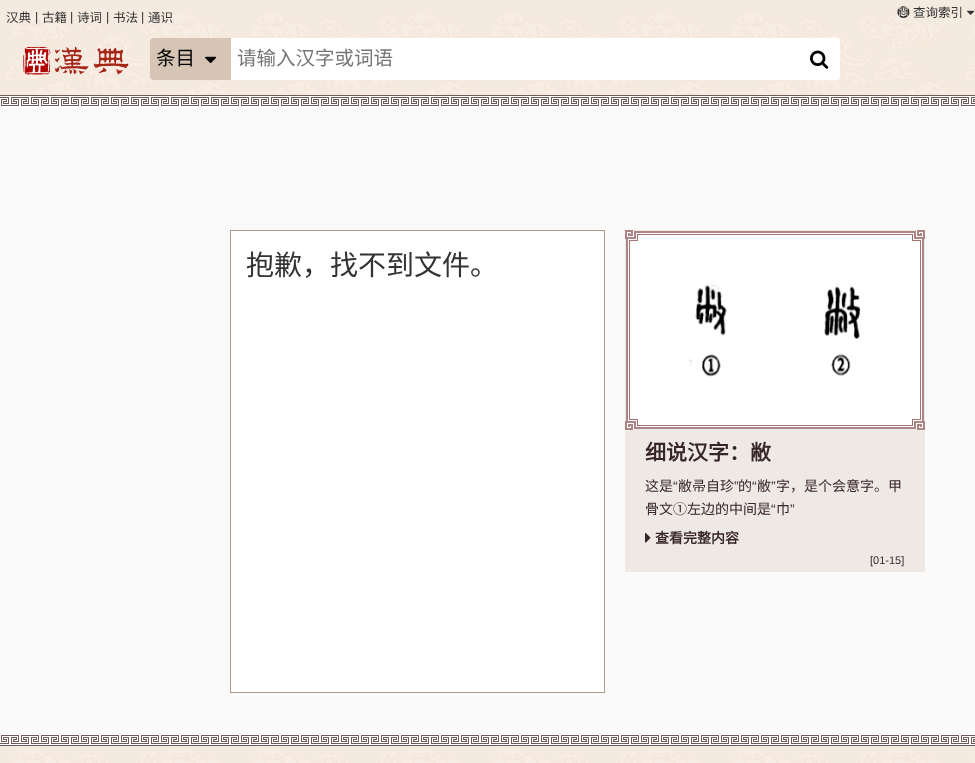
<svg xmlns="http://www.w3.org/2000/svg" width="975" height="763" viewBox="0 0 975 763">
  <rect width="100%" height="100%" fill="rgb(250,250,250)"/>
  <image x="0" y="0" width="975" height="95" href="pic1.png"/>
  <text x="6" y="22" font-family="Noto Sans CJK SC" font-size="12.5" fill="rgb(51,51,51)">汉典</text>
  <text x="35" y="21" font-family="Liberation Sans" font-size="12.5" fill="rgb(51,51,51)">|</text>
  <text x="42" y="22" font-family="Noto Sans CJK SC" font-size="12.5" fill="rgb(51,51,51)">古籍</text>
  <text x="70" y="21" font-family="Liberation Sans" font-size="12.5" fill="rgb(51,51,51)">|</text>
  <text x="77" y="22" font-family="Noto Sans CJK SC" font-size="12.5" fill="rgb(51,51,51)">诗词</text>
  <text x="106" y="21" font-family="Liberation Sans" font-size="12.5" fill="rgb(51,51,51)">|</text>
  <text x="113" y="22" font-family="Noto Sans CJK SC" font-size="12.5" fill="rgb(51,51,51)">书法</text>
  <text x="141" y="21" font-family="Liberation Sans" font-size="12.5" fill="rgb(51,51,51)">|</text>
  <text x="148" y="22" font-family="Noto Sans CJK SC" font-size="12.5" fill="rgb(51,51,51)">通识</text>
  <image x="897" y="6" width="13" height="12" href="pic2.png"/>
  <text x="913" y="17" font-family="Noto Sans CJK SC" font-size="12.5" fill="rgb(51,51,51)">查询索引</text>
  <image x="967" y="10" width="8" height="5" href="pic3.png"/>
  <image x="23" y="46" width="106" height="29" href="pic4.png"/>
  <rect x="150" y="38" width="690" height="42" rx="3" fill="rgb(255,255,255)"/>
  <path d="M153 38H231V80H153C151.5 80 150 78.5 150 77V41C150 39.5 151.5 38 153 38Z" fill="rgb(214,196,181)"/>
  <text x="156" y="65" font-family="Noto Sans CJK SC" font-size="19.5" fill="rgb(0,0,0)">条目</text>
  <image x="205" y="56" width="12" height="7" href="pic5.png"/>
  <text x="237" y="65" font-family="Noto Sans CJK SC" font-size="19.5" fill="rgb(117,117,117)">请输入汉字或词语</text>
  <image x="810" y="50" width="19" height="19" href="pic6.png"/>
  <image x="0" y="95" width="975" height="12" href="pic7.png"/>
  <rect x="230.5" y="230.5" width="374" height="462" fill="rgb(255,255,255)" stroke="rgb(175,154,135)"/>
  <text x="246" y="275" font-family="Noto Sans CJK SC" font-size="28" fill="rgb(51,51,51)">抱歉，找不到文件。</text>
  <rect x="625" y="230" width="300" height="342" fill="rgb(239,233,230)"/>
  <image x="630" y="235" width="290" height="190" href="pic8.png"/>
  <image x="625" y="230" width="300" height="200" href="pic9.png"/>
  <text x="645" y="460" font-family="Noto Sans CJK SC" font-size="21" font-weight="bold" fill="rgb(54,37,41)">细说汉字：敝</text>
  <text x="645" y="491" font-family="Noto Sans CJK SC" font-size="14" fill="rgb(54,37,41)">这是</text>
  <text x="673" y="491" font-family="Liberation Sans" font-size="14" fill="rgb(54,37,41)">“</text>
  <text x="678" y="491" font-family="Noto Sans CJK SC" font-size="14" fill="rgb(54,37,41)">敝帚自珍</text>
  <text x="734" y="491" font-family="Liberation Sans" font-size="14" fill="rgb(54,37,41)">”</text>
  <text x="738" y="491" font-family="Noto Sans CJK SC" font-size="14" fill="rgb(54,37,41)">的</text>
  <text x="752" y="491" font-family="Liberation Sans" font-size="14" fill="rgb(54,37,41)">“</text>
  <text x="757" y="491" font-family="Noto Sans CJK SC" font-size="14" fill="rgb(54,37,41)">敝</text>
  <text x="771" y="491" font-family="Liberation Sans" font-size="14" fill="rgb(54,37,41)">”</text>
  <g font-family="Noto Sans CJK SC" font-size="14" fill="rgb(54,37,41)">
    <text x="776" y="491">字，是个会意字。甲</text>
    <text x="645" y="514">骨文①左边的中间是</text>
  </g>
  <text x="771" y="514" font-family="Liberation Sans" font-size="14" fill="rgb(54,37,41)">“</text>
  <text x="776" y="514" font-family="Noto Sans CJK SC" font-size="14" fill="rgb(54,37,41)">巾</text>
  <text x="790" y="514" font-family="Liberation Sans" font-size="14" fill="rgb(54,37,41)">”</text>
  <image x="645" y="533" width="6" height="10" href="pic10.png"/>
  <text x="655" y="543" font-family="Noto Sans CJK SC" font-size="14" font-weight="bold" fill="rgb(54,37,41)">查看完整内容</text>
  <text x="870" y="564" font-family="Liberation Sans" font-size="11" fill="rgb(54,37,41)">[01-15]</text>
  <image x="0" y="746" width="975" height="17" href="pic11.png"/>
  <image x="0" y="734" width="975" height="12" href="pic12.png"/>
</svg>
